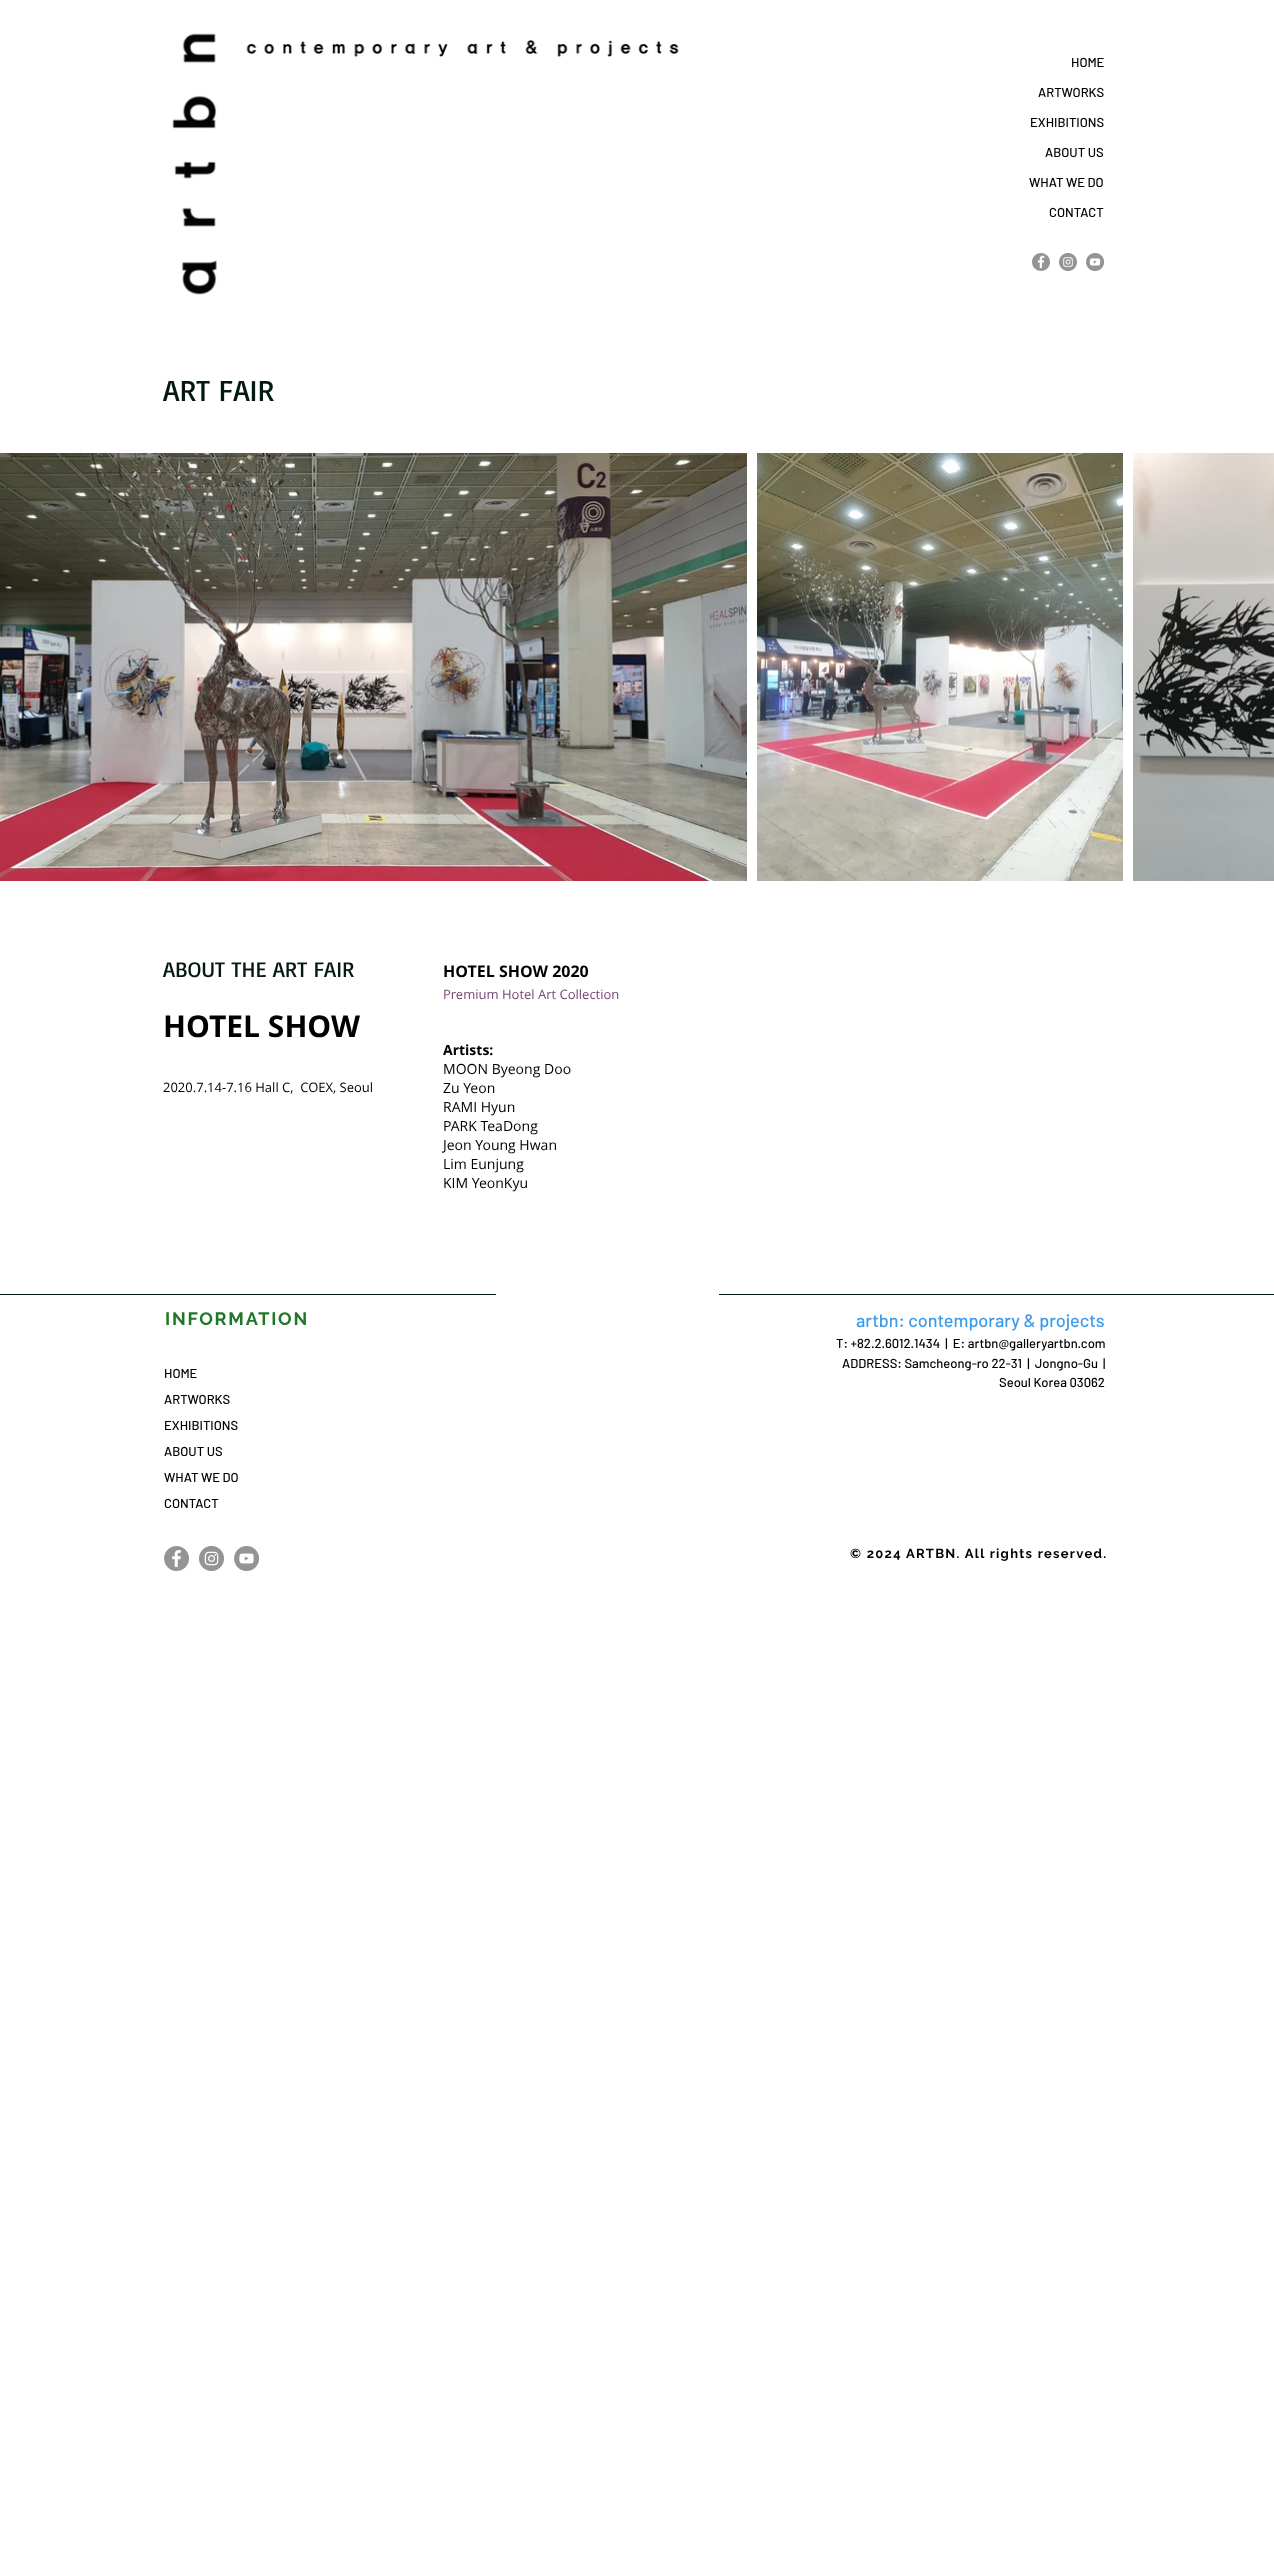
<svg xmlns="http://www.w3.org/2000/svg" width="1274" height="2570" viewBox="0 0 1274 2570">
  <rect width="100%" height="100%" fill="rgb(255,255,255)"/>
  <image x="172" y="33" width="45" height="262" href="pic1.png"/>
  <image x="246" y="40" width="433" height="17" href="pic2.png"/>
  <g font-family="Barlow" font-size="13" font-weight="500" fill="rgb(0,0,0)">
    <text x="1071" y="67">HOME</text>
    <text x="1038" y="97">ARTWORKS</text>
    <text x="1030" y="127">EXHIBITIONS</text>
    <text x="1045" y="157">ABOUT US</text>
    <text x="1029" y="187">WHAT WE DO</text>
    <text x="1049" y="217">CONTACT</text>
  </g>
  <image x="1032" y="253" width="18" height="18" href="pic3.png"/>
  <image x="1059" y="253" width="18" height="18" href="pic4.png"/>
  <image x="1086" y="253" width="18" height="18" href="pic5.png"/>
  <text x="163" y="401" font-family="Basic" font-size="30" fill="rgb(5,25,20)">ART FAIR</text>
  <image x="0" y="453" width="747" height="428" href="pic6.png"/>
  <image x="757" y="453" width="366" height="428" href="pic7.png"/>
  <image x="1133" y="453" width="141" height="428" href="pic8.png"/>
  <text x="163" y="977" font-family="Basic" font-size="22" fill="rgb(5,25,20)">ABOUT THE ART FAIR</text>
  <text x="443" y="977" font-family="Open Sans" font-size="16" font-weight="bold" fill="rgb(0,0,0)">HOTEL SHOW 2020</text>
  <text x="443" y="999" font-family="Open Sans" font-size="13" fill="rgb(118,70,118)">Premium Hotel Art Collection</text>
  <text x="443" y="1055" font-family="Open Sans" font-size="14" font-weight="bold" fill="rgb(0,0,0)">Artists:</text>
  <g font-family="Open Sans" font-size="14" fill="rgb(0,0,0)">
    <text>
      <tspan x="443" y="1074">MOON Byeong Doo</tspan>
      <tspan x="443" y="1093">Zu Yeon</tspan>
      <tspan x="443" y="1112">RAMI Hyun</tspan>
      <tspan x="443" y="1131">PARK TeaDong</tspan>
      <tspan x="443" y="1150">Jeon Young Hwan</tspan>
      <tspan x="443" y="1169">Lim Eunjung</tspan>
      <tspan x="443" y="1188">KIM YeonKyu</tspan>
    </text>
  </g>
  <text x="163" y="1037" font-family="Open Sans" font-size="30" font-weight="bold" fill="rgb(0,0,0)">HOTEL SHOW</text>
  <text x="163" y="1092" font-family="Open Sans" font-size="13" fill="rgb(0,0,0)" xml:space="preserve">2020.7.14-7.16 Hall C,  COEX, Seoul</text>
  <rect x="0" y="1294" width="496" height="1" fill="rgb(5,25,20)"/>
  <rect x="719" y="1294" width="555" height="1" fill="rgb(5,25,20)"/>
  <text x="165" y="1325" font-family="Raleway" font-size="18" font-weight="bold" letter-spacing="1.75" fill="rgb(30,120,39)">INFORMATION</text>
  <text x="856" y="1327" font-family="Barlow" font-size="18" font-weight="500" fill="rgb(61,155,233)">artbn: contemporary &amp; projects</text>
  <g font-family="Barlow" font-size="13" font-weight="500" fill="rgb(0,0,0)">
    <text x="836" y="1348" xml:space="preserve">T: +82.2.6012.1434  |  E: artbn@galleryartbn.com</text>
    <text x="842" y="1368" xml:space="preserve">ADDRESS: Samcheong-ro 22-31  |  Jongno-Gu  |</text>
    <text x="999" y="1387">Seoul Korea 03062</text>
    <text x="164" y="1378">HOME</text>
    <text x="164" y="1404">ARTWORKS</text>
    <text x="164" y="1430">EXHIBITIONS</text>
    <text x="164" y="1456">ABOUT US</text>
    <text x="164" y="1482">WHAT WE DO</text>
    <text x="164" y="1508">CONTACT</text>
  </g>
  <image x="164" y="1546" width="25" height="25" href="pic9.png"/>
  <image x="199" y="1546" width="25" height="25" href="pic10.png"/>
  <image x="234" y="1546" width="25" height="25" href="pic11.png"/>
  <text x="850" y="1558" font-family="Raleway" font-size="13" font-weight="bold" letter-spacing="1.3" fill="rgb(0,0,0)">© 2024 ARTBN. All rights reserved.</text>
</svg>
